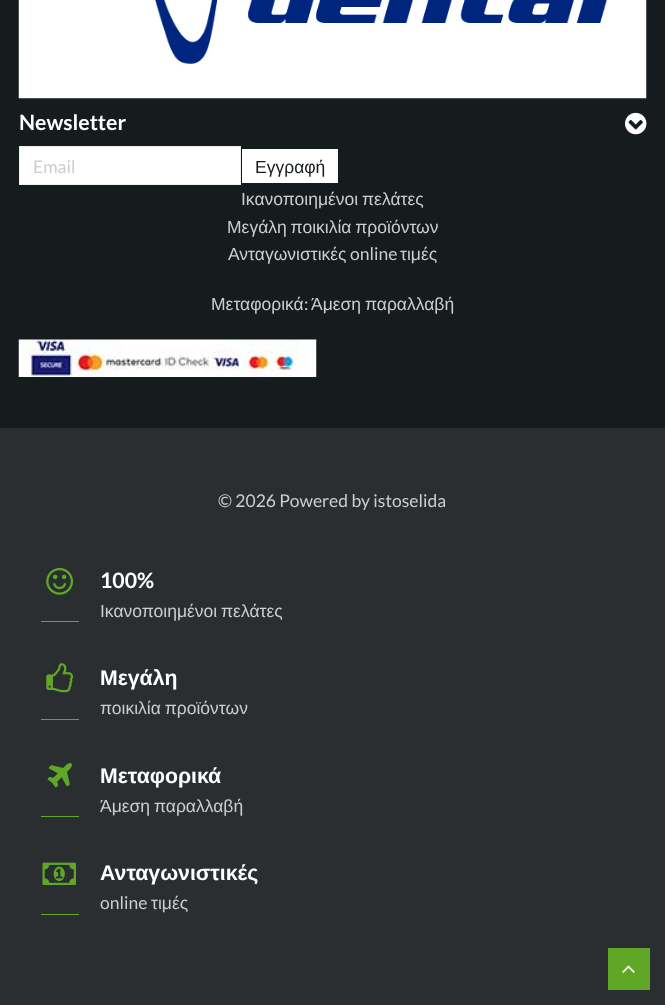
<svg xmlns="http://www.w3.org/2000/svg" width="665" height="1005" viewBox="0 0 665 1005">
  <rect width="100%" height="100%" fill="rgb(22,27,30)"/>
  <image x="18" y="0" width="629" height="99" href="pic1.png"/>
  <text x="19" y="130" font-family="Lato" font-size="21.25" font-weight="bold" fill="rgb(255,255,255)">Newsletter</text>
  <image x="625" y="112" width="22" height="23" href="pic2.png"/>
  <rect x="19.5" y="146.5" width="221" height="38" fill="rgb(255,255,255)" stroke="rgb(238,238,238)"/>
  <text x="33" y="173" font-family="Lato" font-size="17.5" fill="rgb(205,205,205)">Email</text>
  <rect x="242" y="149" width="96" height="34" fill="rgb(255,255,255)"/>
  <text x="255" y="173" font-family="Liberation Sans" font-size="17.5" fill="rgb(22,27,30)">Εγγραφή</text>
  <g font-family="Liberation Sans" font-size="17.5" fill="rgb(205,205,205)">
    <text x="241" y="205" word-spacing="-1">Ικανοποιημένοι πελάτες</text>
    <text x="227" y="233" word-spacing="-1">Μεγάλη ποικιλία προϊόντων</text>
    <text x="228" y="260">Ανταγωνιστικές</text>
  </g>
  <text x="350" y="260" font-family="Lato" font-size="17.5" fill="rgb(205,205,205)">online</text>
  <g font-family="Liberation Sans" font-size="17.5" fill="rgb(205,205,205)">
    <text x="400" y="260">τιμές</text>
    <text x="211" y="310">Μεταφορικά</text>
  </g>
  <text x="304" y="310" font-family="Lato" font-size="17.5" fill="rgb(205,205,205)">:</text>
  <text x="311" y="310" word-spacing="-1" font-family="Liberation Sans" font-size="17.5" fill="rgb(205,205,205)">Άμεση παραλλαβή</text>
  <image x="18" y="339" width="299" height="38" href="pic3.png"/>
  <rect x="0" y="428" width="665" height="577" fill="rgb(42,46,49)"/>
  <text x="218" y="507" font-family="Lato" font-size="17.5" fill="rgb(205,205,205)">© 2026 Powered by istoselida</text>
  <image x="46" y="567" width="27" height="28" href="pic4.png"/>
  <rect x="41" y="621" width="38" height="1" fill="rgb(96,167,39)"/>
  <text x="100" y="588" font-family="Lato" font-size="21.25" font-weight="bold" fill="rgb(255,255,255)">100%</text>
  <text x="100" y="617" word-spacing="-1" font-family="Liberation Sans" font-size="17.5" fill="rgb(205,205,205)">Ικανοποιημένοι πελάτες</text>
  <image x="46" y="663" width="27" height="30" href="pic5.png"/>
  <rect x="41" y="719" width="38" height="1" fill="rgb(96,167,39)"/>
  <text x="100" y="685" font-family="Liberation Sans" font-size="21.25" font-weight="bold" fill="rgb(255,255,255)">Μεγάλη</text>
  <text x="100" y="714" word-spacing="-1" font-family="Liberation Sans" font-size="17.5" fill="rgb(205,205,205)">ποικιλία προϊόντων</text>
  <image x="47" y="763" width="25" height="25" href="pic6.png"/>
  <rect x="41" y="816" width="38" height="1" fill="rgb(96,167,39)"/>
  <text x="100" y="783" font-family="Liberation Sans" font-size="21.25" font-weight="bold" fill="rgb(255,255,255)">Μεταφορικά</text>
  <text x="100" y="812" word-spacing="-1" font-family="Liberation Sans" font-size="17.5" fill="rgb(205,205,205)">Άμεση παραλλαβή</text>
  <image x="42" y="862" width="34" height="23" href="pic7.png"/>
  <rect x="41" y="914" width="38" height="1" fill="rgb(96,167,39)"/>
  <text x="100" y="880" font-family="Liberation Sans" font-size="21.25" font-weight="bold" fill="rgb(255,255,255)">Ανταγωνιστικές</text>
  <text x="100" y="909" font-family="Lato" font-size="17.5" fill="rgb(205,205,205)">online</text>
  <text x="151" y="909" font-family="Liberation Sans" font-size="17.5" fill="rgb(205,205,205)">τιμές</text>
  <rect x="608" y="948" width="42" height="42" fill="rgb(96,167,39)"/>
  <image x="622" y="965" width="13" height="8" href="pic8.png"/>
</svg>
